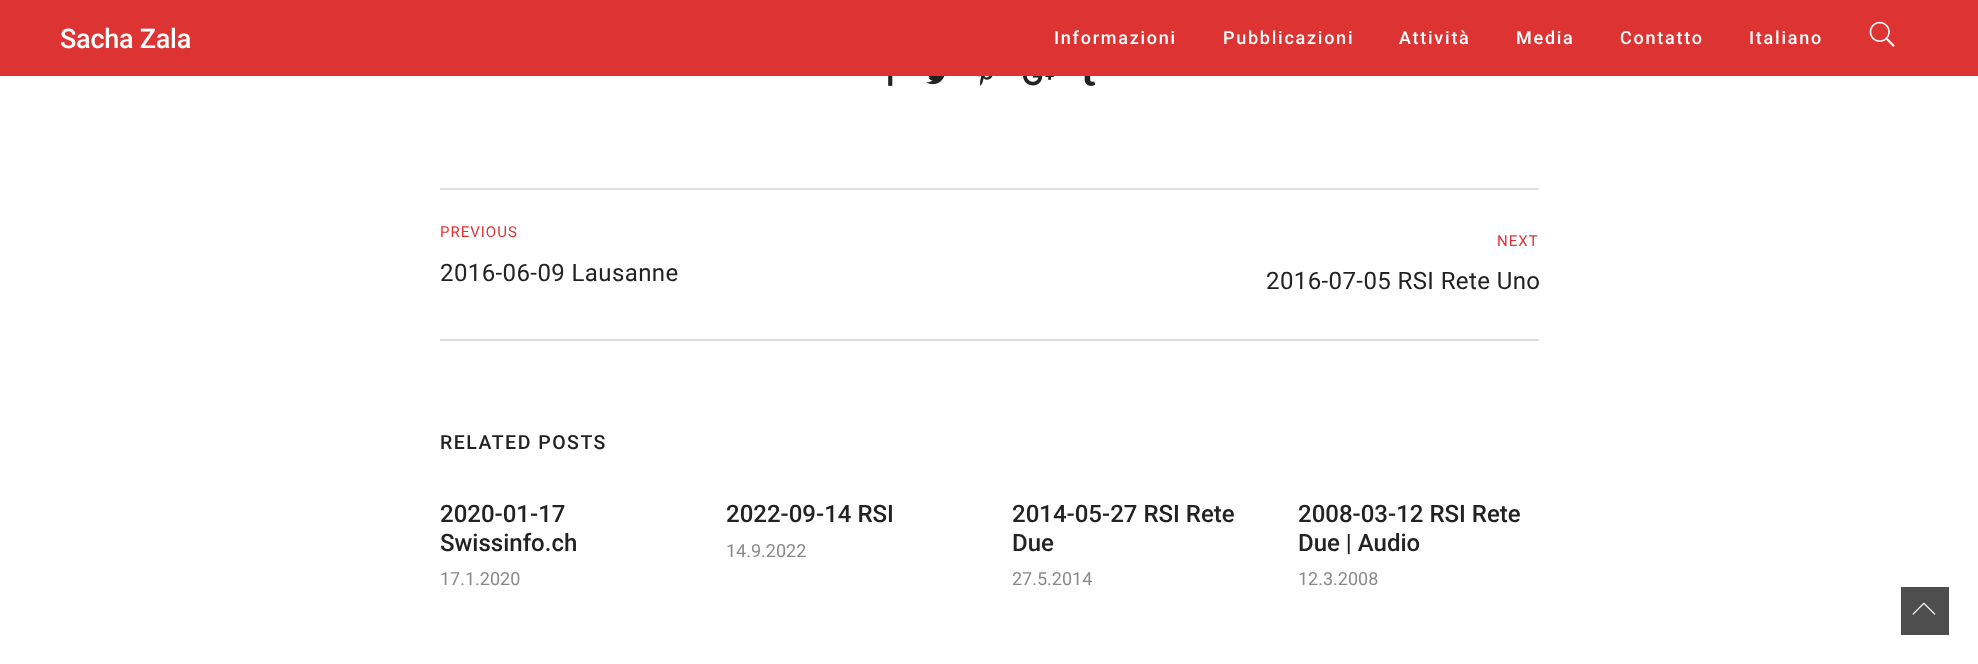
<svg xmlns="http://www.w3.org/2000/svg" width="1978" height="664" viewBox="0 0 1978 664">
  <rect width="100%" height="100%" fill="rgb(255,255,255)"/>
  <rect x="0" y="0" width="1978" height="76" fill="rgb(221,51,51)"/>
  <text x="60" y="48" font-family="Roboto" font-size="27" font-weight="500" letter-spacing="-0.25" fill="rgb(255,255,255)">Sacha Zala</text>
  <g font-family="Roboto" font-size="18" font-weight="500" letter-spacing="1.75" fill="rgb(255,255,255)">
    <text x="1054" y="44">Informazioni</text>
    <text x="1223" y="44">Pubblicazioni</text>
    <text x="1399" y="44">Attività</text>
    <text x="1516" y="44">Media</text>
    <text x="1620" y="44">Contatto</text>
    <text x="1749" y="44">Italiano</text>
  </g>
  <image x="1869" y="21" width="26" height="26" href="pic1.png"/>
  <image x="888" y="76" width="5" height="10" href="pic2.png"/>
  <image x="926" y="76" width="19" height="9" href="pic3.png"/>
  <image x="978" y="76" width="15" height="10" href="pic4.png"/>
  <image x="1023" y="76" width="31" height="10" href="pic5.png"/>
  <image x="1084" y="76" width="12" height="10" href="pic6.png"/>
  <rect x="440" y="188" width="1099" height="2" fill="rgb(223,223,223)"/>
  <rect x="440" y="339" width="1099" height="2" fill="rgb(223,223,223)"/>
  <text x="440" y="237" font-family="Roboto" font-size="15" letter-spacing="1" fill="rgb(221,51,51)">PREVIOUS</text>
  <text x="440" y="281" font-family="Roboto" font-size="24" letter-spacing="0.4" fill="rgb(34,34,34)">2016-06-09 Lausanne</text>
  <text x="1497" y="246" font-family="Roboto" font-size="15" letter-spacing="1" fill="rgb(221,51,51)">NEXT</text>
  <text x="1266" y="289" font-family="Roboto" font-size="24" letter-spacing="0.4" fill="rgb(34,34,34)">2016-07-05 RSI Rete Uno</text>
  <text x="440" y="449" font-family="Roboto" font-size="19.5" font-weight="500" letter-spacing="1.5" fill="rgb(34,34,34)">RELATED POSTS</text>
  <g font-family="Roboto" font-size="24" font-weight="500" fill="rgb(34,34,34)">
    <text>
      <tspan x="440" y="522">2020-01-17</tspan>
      <tspan x="440" y="551">Swissinfo.ch</tspan>
    </text>
  </g>
  <text x="440" y="585" font-family="Roboto" font-size="18" fill="rgb(137,137,137)">17.1.2020</text>
  <text x="726" y="522" font-family="Roboto" font-size="24" font-weight="500" fill="rgb(34,34,34)">2022-09-14 RSI</text>
  <text x="726" y="557" font-family="Roboto" font-size="18" fill="rgb(137,137,137)">14.9.2022</text>
  <g font-family="Roboto" font-size="24" font-weight="500" fill="rgb(34,34,34)">
    <text>
      <tspan x="1012" y="522">2014-05-27 RSI Rete</tspan>
      <tspan x="1012" y="551">Due</tspan>
    </text>
  </g>
  <text x="1012" y="585" font-family="Roboto" font-size="18" fill="rgb(137,137,137)">27.5.2014</text>
  <g font-family="Roboto" font-size="24" font-weight="500" fill="rgb(34,34,34)">
    <text>
      <tspan x="1298" y="522">2008-03-12 RSI Rete</tspan>
      <tspan x="1298" y="551">Due | Audio</tspan>
    </text>
  </g>
  <text x="1298" y="585" font-family="Roboto" font-size="18" fill="rgb(137,137,137)">12.3.2008</text>
  <rect x="1901" y="587" width="48" height="48" fill="rgb(78,78,78)"/>
  <image x="1912" y="602" width="24" height="13" href="pic7.png"/>
</svg>
